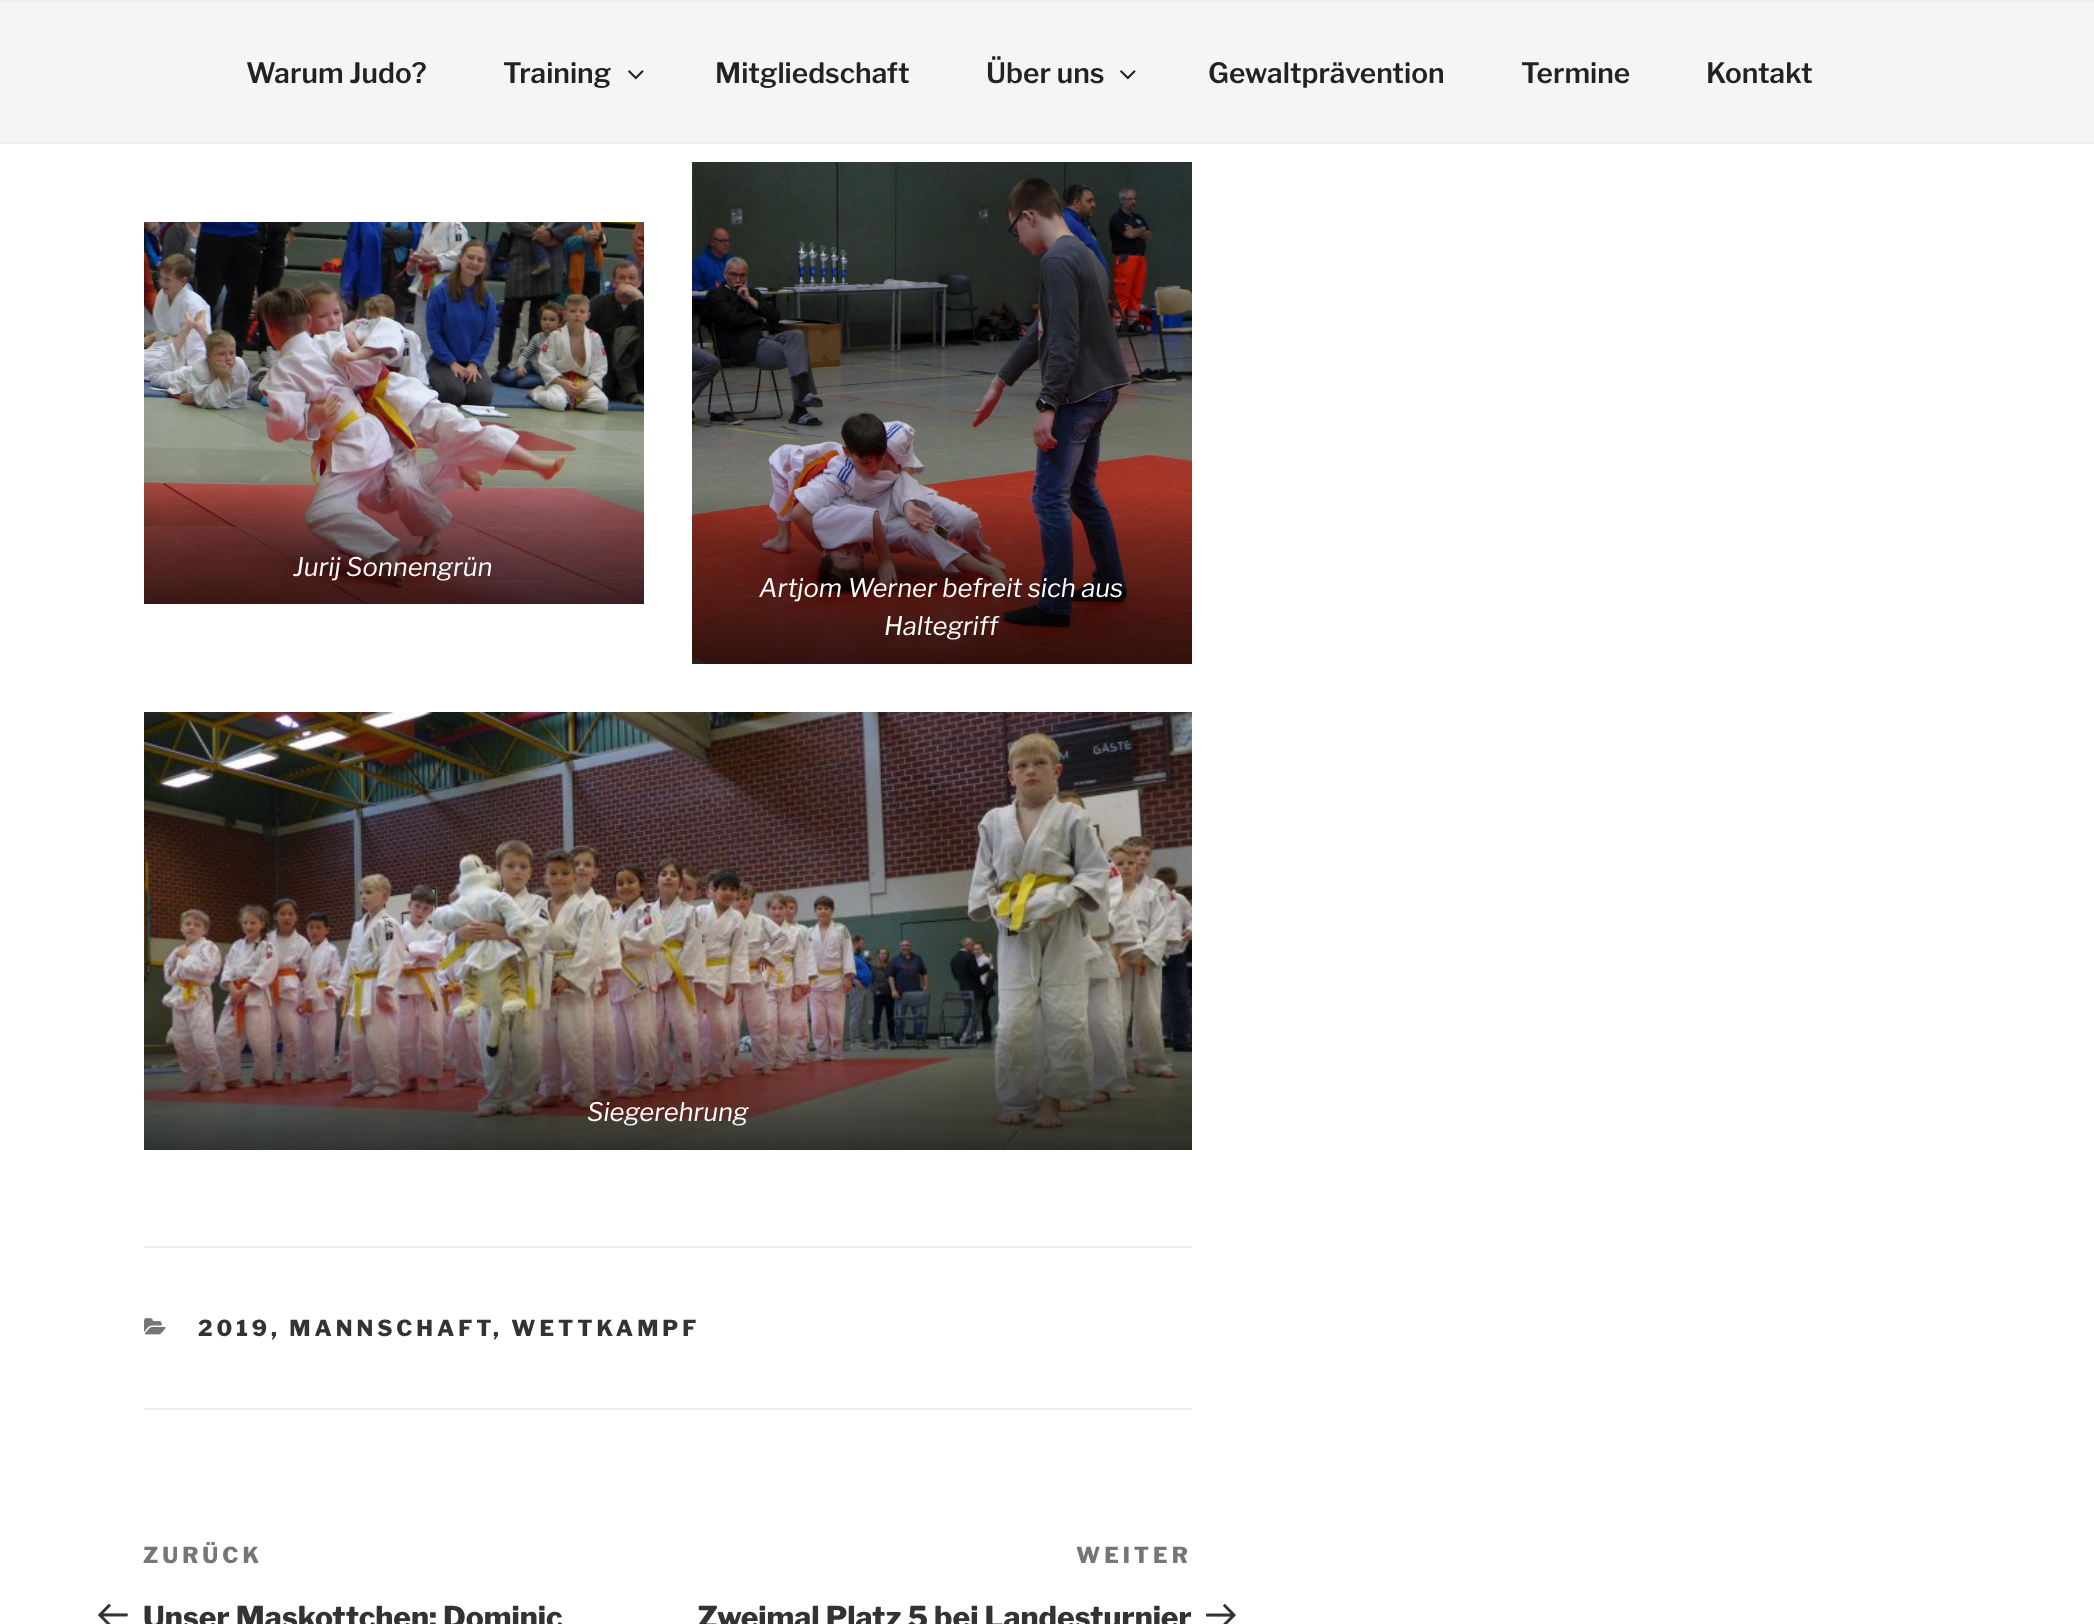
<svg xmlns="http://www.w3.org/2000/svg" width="2094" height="1624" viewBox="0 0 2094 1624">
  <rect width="100%" height="100%" fill="rgb(255,255,255)"/>
  <rect x="0" y="2" width="2094" height="140" fill="rgb(245,245,245)"/>
  <rect x="0" y="0" width="2094" height="2" fill="rgb(238,238,238)"/>
  <rect x="0" y="142" width="2094" height="2" fill="rgb(238,238,238)"/>
  <g font-family="'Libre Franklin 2'" font-size="28" font-weight="100" fill="rgb(34,34,34)">
    <text x="246" y="83">Warum Judo?</text>
    <text x="503" y="83">Training</text>
  </g>
  <image x="628" y="70" width="16" height="10" href="pic1.png"/>
  <g font-family="'Libre Franklin 2'" font-size="28" font-weight="100" fill="rgb(34,34,34)">
    <text x="715" y="83">Mitgliedschaft</text>
    <text x="986" y="83">Über uns</text>
  </g>
  <image x="1120" y="70" width="16" height="10" href="pic1.png"/>
  <g font-family="'Libre Franklin 2'" font-size="28" font-weight="100" fill="rgb(34,34,34)">
    <text x="1208" y="83">Gewaltprävention</text>
    <text x="1521" y="83">Termine</text>
    <text x="1706" y="83">Kontakt</text>
  </g>
  <image x="144" y="222" width="500" height="382" href="pic2.png"/>
  <text x="293" y="576" font-family="Libre Franklin" font-size="25.6" font-weight="100" font-style="italic" fill="rgb(255,255,255)">Jurij Sonnengrün</text>
  <image x="692" y="162" width="500" height="502" href="pic3.png"/>
  <g font-family="Libre Franklin" font-size="25.6" font-weight="100" font-style="italic" fill="rgb(255,255,255)">
    <text x="759" y="597">Artjom Werner befreit sich aus</text>
    <text x="884" y="635">Haltegriff</text>
  </g>
  <image x="144" y="712" width="1048" height="438" href="pic4.png"/>
  <text x="587" y="1121" font-family="Libre Franklin" font-size="25.6" font-weight="100" font-style="italic" fill="rgb(255,255,255)">Siegerehrung</text>
  <rect x="144" y="1246" width="1048" height="2" fill="rgb(238,238,238)"/>
  <rect x="144" y="1408" width="1048" height="2" fill="rgb(238,238,238)"/>
  <image x="144" y="1318" width="22" height="17" href="pic5.png"/>
  <g font-family="Libre Franklin" font-size="22" font-weight="100" letter-spacing="4" fill="rgb(51,51,51)">
    <text x="198" y="1336">2019, MANNSCHAFT</text>
    <text x="493" y="1336">, WETTKAMPF</text>
  </g>
  <text x="143" y="1563" font-family="Libre Franklin" font-size="22" font-weight="100" letter-spacing="4" fill="rgb(118,118,118)">ZURÜCK</text>
  <image x="98" y="1603" width="30" height="21" href="pic6.png"/>
  <text x="143" y="1628" font-family="Libre Franklin" font-size="30" font-weight="100" fill="rgb(51,51,51)">Unser Maskottchen: Dominic</text>
  <text x="1076" y="1563" font-family="Libre Franklin" font-size="22" font-weight="100" letter-spacing="4" fill="rgb(118,118,118)">WEITER</text>
  <text x="697" y="1628" font-family="Libre Franklin" font-size="30" font-weight="100" fill="rgb(51,51,51)">Zweimal Platz 5 bei Landesturnier</text>
  <image x="1206" y="1603" width="30" height="21" href="pic7.png"/>
</svg>
